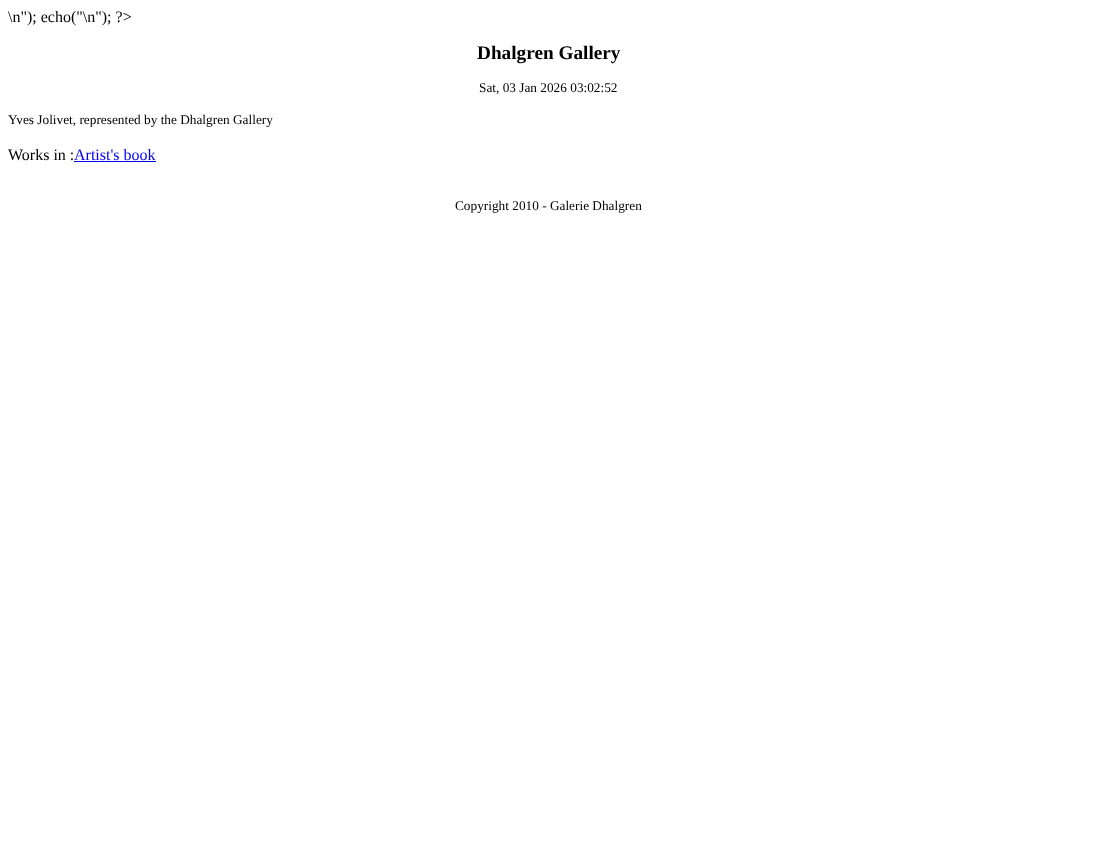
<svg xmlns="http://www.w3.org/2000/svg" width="1097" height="850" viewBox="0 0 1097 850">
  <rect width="100%" height="100%" fill="rgb(255,255,255)"/>
  <text x="8" y="22" font-family="Liberation Serif" font-size="16" fill="rgb(0,0,0)">\n"); echo("\n"); ?&gt;</text>
  <text x="477" y="59" font-family="Liberation Serif" font-size="19.25" font-weight="bold" fill="rgb(0,0,0)">Dhalgren Gallery</text>
  <g font-family="Liberation Serif" font-size="13.3" fill="rgb(0,0,0)">
    <text x="479" y="92">Sat, 03 Jan 2026 03:02:52</text>
    <text x="8" y="124">Yves Jolivet, represented by the Dhalgren Gallery</text>
  </g>
  <text x="8" y="160" font-family="Liberation Serif" font-size="16" fill="rgb(0,0,0)">Works in :</text>
  <text x="74" y="160" font-family="Liberation Serif" font-size="16" fill="rgb(0,0,238)">Artist's book</text>
  <rect x="74" y="161" width="82" height="1" fill="rgb(0,0,238)"/>
  <text x="455" y="210" font-family="Liberation Serif" font-size="13.3" fill="rgb(0,0,0)">Copyright 2010 - Galerie Dhalgren</text>
</svg>
